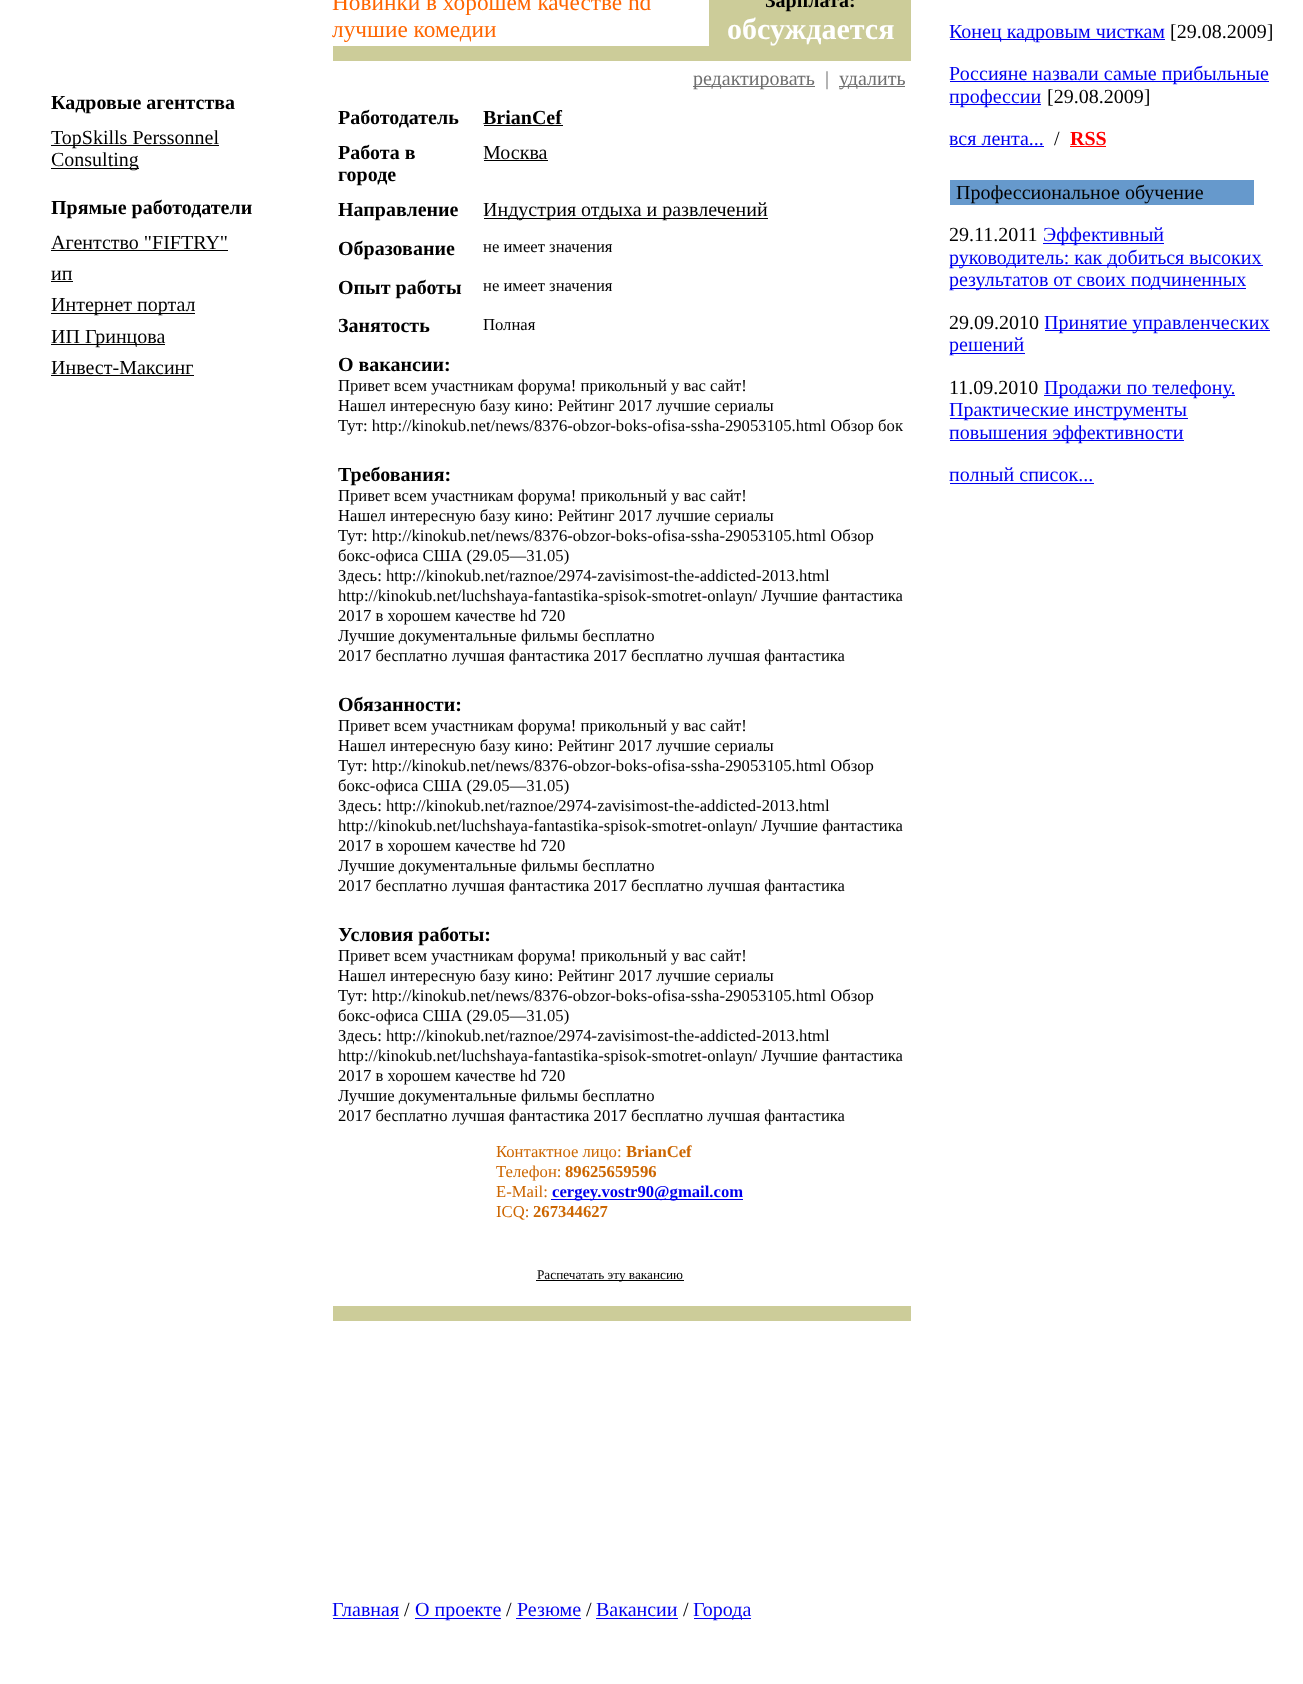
<svg xmlns="http://www.w3.org/2000/svg" width="1303" height="1684" viewBox="0 0 1303 1684">
  <rect width="100%" height="100%" fill="rgb(255,255,255)"/>
  <text x="51" y="109" font-family="Liberation Serif" font-size="20" font-weight="bold" fill="rgb(0,0,0)">Кадровые агентства</text>
  <rect x="51" y="145" width="168" height="1" fill="rgb(0,0,0)"/>
  <text x="51" y="144" font-family="Liberation Serif" font-size="20" fill="rgb(0,0,0)">TopSkills Perssonnel</text>
  <rect x="51" y="168" width="88" height="1" fill="rgb(0,0,0)"/>
  <text x="51" y="166" font-family="Liberation Serif" font-size="20" fill="rgb(0,0,0)">Consulting</text>
  <text x="51" y="214" font-family="Liberation Serif" font-size="20" font-weight="bold" fill="rgb(0,0,0)">Прямые работодатели</text>
  <text x="51" y="249" font-family="Liberation Serif" font-size="20" fill="rgb(0,0,0)">Агентство "FIFTRY"</text>
  <rect x="51" y="250" width="177" height="1" fill="rgb(0,0,0)"/>
  <text x="51" y="280" font-family="Liberation Serif" font-size="20" fill="rgb(0,0,0)">ип</text>
  <rect x="51" y="281" width="22" height="1" fill="rgb(0,0,0)"/>
  <rect x="51" y="313" width="144" height="1" fill="rgb(0,0,0)"/>
  <text x="51" y="311" font-family="Liberation Serif" font-size="20" fill="rgb(0,0,0)">Интернет портал</text>
  <rect x="51" y="344" width="114" height="1" fill="rgb(0,0,0)"/>
  <g font-family="Liberation Serif" font-size="20" fill="rgb(0,0,0)">
    <text>
      <tspan x="51" y="343">ИП Гринцова</tspan>
      <tspan x="51" y="374">Инвест-Максинг</tspan>
    </text>
  </g>
  <rect x="51" y="375" width="143" height="1" fill="rgb(0,0,0)"/>
  <g font-family="Liberation Serif" font-size="23.3" fill="rgb(255,102,0)">
    <text>
      <tspan x="332" y="10">Новинки в хорошем качестве hd</tspan>
      <tspan x="332" y="37">лучшие комедии</tspan>
    </text>
  </g>
  <rect x="709" y="0" width="202" height="46" fill="rgb(204,204,153)"/>
  <text x="765" y="7" font-family="Liberation Serif" font-size="20" font-weight="bold" fill="rgb(0,0,0)">Зарплата:</text>
  <text x="727" y="39" font-family="Liberation Serif" font-size="30" font-weight="bold" fill="rgb(255,255,255)">обсуждается</text>
  <rect x="333" y="46" width="578" height="15" fill="rgb(204,204,153)"/>
  <rect x="693" y="86" width="122" height="1" fill="rgb(111,111,111)"/>
  <g font-family="Liberation Serif" font-size="20" fill="rgb(111,111,111)">
    <text x="693" y="85">редактировать</text>
    <text x="825" y="85">|</text>
  </g>
  <rect x="839" y="86" width="66" height="1" fill="rgb(111,111,111)"/>
  <text x="839" y="85" font-family="Liberation Serif" font-size="20" fill="rgb(111,111,111)">удалить</text>
  <g font-family="Liberation Serif" font-size="20" font-weight="bold" fill="rgb(0,0,0)">
    <text x="338" y="124">Работодатель</text>
    <text x="483" y="124">BrianCef</text>
  </g>
  <rect x="484" y="125" width="79" height="1" fill="rgb(0,0,0)"/>
  <g font-family="Liberation Serif" font-size="20" font-weight="bold" fill="rgb(0,0,0)">
    <text>
      <tspan x="338" y="159">Работа в</tspan>
      <tspan x="338" y="181">городе</tspan>
    </text>
  </g>
  <text x="483" y="159" font-family="Liberation Serif" font-size="20" fill="rgb(0,0,0)">Москва</text>
  <rect x="484" y="160" width="64" height="1" fill="rgb(0,0,0)"/>
  <text x="338" y="216" font-family="Liberation Serif" font-size="20" font-weight="bold" fill="rgb(0,0,0)">Направление</text>
  <rect x="484" y="218" width="284" height="1" fill="rgb(0,0,0)"/>
  <text x="483" y="216" font-family="Liberation Serif" font-size="20" fill="rgb(0,0,0)">Индустрия отдыха и развлечений</text>
  <text x="338" y="255" font-family="Liberation Serif" font-size="20" font-weight="bold" fill="rgb(0,0,0)">Образование</text>
  <text x="483" y="252" font-family="Liberation Serif" font-size="16.65" fill="rgb(0,0,0)">не имеет значения</text>
  <text x="338" y="294" font-family="Liberation Serif" font-size="20" font-weight="bold" fill="rgb(0,0,0)">Опыт работы</text>
  <text x="483" y="291" font-family="Liberation Serif" font-size="16.65" fill="rgb(0,0,0)">не имеет значения</text>
  <text x="338" y="332" font-family="Liberation Serif" font-size="20" font-weight="bold" fill="rgb(0,0,0)">Занятость</text>
  <text x="483" y="330" font-family="Liberation Serif" font-size="16.65" fill="rgb(0,0,0)">Полная</text>
  <text x="338" y="371" font-family="Liberation Serif" font-size="20" font-weight="bold" fill="rgb(0,0,0)">О вакансии:</text>
  <g font-family="Liberation Serif" font-size="16.65" fill="rgb(0,0,0)">
    <text>
      <tspan x="338" y="391">Привет всем участникам форума! прикольный у вас сайт!</tspan>
      <tspan x="338" y="411">Нашел интересную базу кино: Рейтинг 2017 лучшие сериалы</tspan>
      <tspan x="338" y="431">Тут: http://kinokub.net/news/8376-obzor-boks-ofisa-ssha-29053105.html Обзор бок</tspan>
    </text>
  </g>
  <text x="338" y="481" font-family="Liberation Serif" font-size="20" font-weight="bold" fill="rgb(0,0,0)">Требования:</text>
  <g font-family="Liberation Serif" font-size="16.65" fill="rgb(0,0,0)">
    <text>
      <tspan x="338" y="501">Привет всем участникам форума! прикольный у вас сайт!</tspan>
      <tspan x="338" y="521">Нашел интересную базу кино: Рейтинг 2017 лучшие сериалы</tspan>
      <tspan x="338" y="541">Тут: http://kinokub.net/news/8376-obzor-boks-ofisa-ssha-29053105.html Обзор</tspan>
      <tspan x="338" y="561">бокс-офиса США (29.05—31.05)</tspan>
      <tspan x="338" y="581">Здесь: http://kinokub.net/raznoe/2974-zavisimost-the-addicted-2013.html</tspan>
      <tspan x="338" y="601">http://kinokub.net/luchshaya-fantastika-spisok-smotret-onlayn/ Лучшие фантастика</tspan>
      <tspan x="338" y="621">2017 в хорошем качестве hd 720</tspan>
      <tspan x="338" y="641">Лучшие документальные фильмы бесплатно</tspan>
      <tspan x="338" y="661">2017 бесплатно лучшая фантастика 2017 бесплатно лучшая фантастика</tspan>
    </text>
  </g>
  <text x="338" y="711" font-family="Liberation Serif" font-size="20" font-weight="bold" fill="rgb(0,0,0)">Обязанности:</text>
  <g font-family="Liberation Serif" font-size="16.65" fill="rgb(0,0,0)">
    <text>
      <tspan x="338" y="731">Привет всем участникам форума! прикольный у вас сайт!</tspan>
      <tspan x="338" y="751">Нашел интересную базу кино: Рейтинг 2017 лучшие сериалы</tspan>
      <tspan x="338" y="771">Тут: http://kinokub.net/news/8376-obzor-boks-ofisa-ssha-29053105.html Обзор</tspan>
      <tspan x="338" y="791">бокс-офиса США (29.05—31.05)</tspan>
      <tspan x="338" y="811">Здесь: http://kinokub.net/raznoe/2974-zavisimost-the-addicted-2013.html</tspan>
      <tspan x="338" y="831">http://kinokub.net/luchshaya-fantastika-spisok-smotret-onlayn/ Лучшие фантастика</tspan>
      <tspan x="338" y="851">2017 в хорошем качестве hd 720</tspan>
      <tspan x="338" y="871">Лучшие документальные фильмы бесплатно</tspan>
      <tspan x="338" y="891">2017 бесплатно лучшая фантастика 2017 бесплатно лучшая фантастика</tspan>
    </text>
  </g>
  <text x="338" y="941" font-family="Liberation Serif" font-size="20" font-weight="bold" fill="rgb(0,0,0)">Условия работы:</text>
  <g font-family="Liberation Serif" font-size="16.65" fill="rgb(0,0,0)">
    <text>
      <tspan x="338" y="961">Привет всем участникам форума! прикольный у вас сайт!</tspan>
      <tspan x="338" y="981">Нашел интересную базу кино: Рейтинг 2017 лучшие сериалы</tspan>
      <tspan x="338" y="1001">Тут: http://kinokub.net/news/8376-obzor-boks-ofisa-ssha-29053105.html Обзор</tspan>
      <tspan x="338" y="1021">бокс-офиса США (29.05—31.05)</tspan>
      <tspan x="338" y="1041">Здесь: http://kinokub.net/raznoe/2974-zavisimost-the-addicted-2013.html</tspan>
      <tspan x="338" y="1061">http://kinokub.net/luchshaya-fantastika-spisok-smotret-onlayn/ Лучшие фантастика</tspan>
      <tspan x="338" y="1081">2017 в хорошем качестве hd 720</tspan>
      <tspan x="338" y="1101">Лучшие документальные фильмы бесплатно</tspan>
      <tspan x="338" y="1121">2017 бесплатно лучшая фантастика 2017 бесплатно лучшая фантастика</tspan>
    </text>
  </g>
  <text x="496" y="1157" font-family="Liberation Serif" font-size="16.65" fill="rgb(204,102,0)">Контактное лицо:</text>
  <text x="626" y="1157" font-family="Liberation Serif" font-size="16.65" font-weight="bold" fill="rgb(204,102,0)">BrianCef</text>
  <text x="496" y="1177" font-family="Liberation Serif" font-size="16.65" fill="rgb(204,102,0)">Телефон:</text>
  <text x="565" y="1177" font-family="Liberation Serif" font-size="16.65" font-weight="bold" fill="rgb(204,102,0)">89625659596</text>
  <text x="496" y="1197" font-family="Liberation Serif" font-size="16.65" fill="rgb(204,102,0)">E-Mail:</text>
  <rect x="551" y="1199" width="192" height="1" fill="rgb(0,0,238)"/>
  <text x="552" y="1197" font-family="Liberation Serif" font-size="16.65" font-weight="bold" fill="rgb(0,0,238)">cergey.vostr90@gmail.com</text>
  <text x="496" y="1217" font-family="Liberation Serif" font-size="16.65" fill="rgb(204,102,0)">ICQ:</text>
  <text x="533" y="1217" font-family="Liberation Serif" font-size="16.65" font-weight="bold" fill="rgb(204,102,0)">267344627</text>
  <rect x="536" y="1280" width="148" height="1" fill="rgb(0,0,0)"/>
  <text x="537" y="1279" font-family="Liberation Serif" font-size="13.25" fill="rgb(0,0,0)">Распечатать эту вакансию</text>
  <rect x="333" y="1306" width="578" height="15" fill="rgb(204,204,153)"/>
  <text x="332" y="1616" font-family="Liberation Serif" font-size="20" fill="rgb(0,0,238)">Главная</text>
  <rect x="333" y="1618" width="66" height="1" fill="rgb(0,0,238)"/>
  <text x="404" y="1616" font-family="Liberation Serif" font-size="20" fill="rgb(0,0,0)">/</text>
  <rect x="415" y="1618" width="86" height="1" fill="rgb(0,0,238)"/>
  <text x="415" y="1616" font-family="Liberation Serif" font-size="20" fill="rgb(0,0,238)">О проекте</text>
  <text x="506" y="1616" font-family="Liberation Serif" font-size="20" fill="rgb(0,0,0)">/</text>
  <text x="517" y="1616" font-family="Liberation Serif" font-size="20" fill="rgb(0,0,238)">Резюме</text>
  <rect x="516" y="1618" width="65" height="1" fill="rgb(0,0,238)"/>
  <text x="586" y="1616" font-family="Liberation Serif" font-size="20" fill="rgb(0,0,0)">/</text>
  <text x="596" y="1616" font-family="Liberation Serif" font-size="20" fill="rgb(0,0,238)">Вакансии</text>
  <rect x="596" y="1618" width="82" height="1" fill="rgb(0,0,238)"/>
  <text x="683" y="1616" font-family="Liberation Serif" font-size="20" fill="rgb(0,0,0)">/</text>
  <rect x="694" y="1618" width="57" height="1" fill="rgb(0,0,238)"/>
  <text x="693" y="1616" font-family="Liberation Serif" font-size="20" fill="rgb(0,0,238)">Города</text>
  <rect x="950" y="39" width="215" height="1" fill="rgb(0,0,238)"/>
  <text x="949" y="38" font-family="Liberation Serif" font-size="20" fill="rgb(0,0,238)">Конец кадровым чисткам</text>
  <text x="1170" y="38" font-family="Liberation Serif" font-size="20" fill="rgb(0,0,0)">[29.08.2009]</text>
  <rect x="950" y="81" width="319" height="1" fill="rgb(0,0,238)"/>
  <text x="949" y="80" font-family="Liberation Serif" font-size="20" fill="rgb(0,0,238)">Россияне назвали самые прибыльные</text>
  <rect x="950" y="104" width="91" height="1" fill="rgb(0,0,238)"/>
  <text x="949" y="103" font-family="Liberation Serif" font-size="20" fill="rgb(0,0,238)">профессии</text>
  <text x="1047" y="103" font-family="Liberation Serif" font-size="20" fill="rgb(0,0,0)">[29.08.2009]</text>
  <text x="949" y="145" font-family="Liberation Serif" font-size="20" fill="rgb(0,0,238)">вся лента...</text>
  <rect x="950" y="146" width="94" height="1" fill="rgb(0,0,238)"/>
  <text x="1054" y="145" font-family="Liberation Serif" font-size="20" fill="rgb(0,0,0)">/</text>
  <text x="1070" y="145" font-family="Liberation Serif" font-size="20" font-weight="bold" fill="rgb(255,0,0)">RSS</text>
  <rect x="1070" y="146" width="36" height="1" fill="rgb(255,0,0)"/>
  <rect x="950" y="180" width="304" height="25" fill="rgb(102,153,204)"/>
  <g font-family="Liberation Serif" font-size="20" fill="rgb(0,0,0)">
    <text x="956" y="199">Профессиональное обучение</text>
    <text x="949" y="241">29.11.2011</text>
  </g>
  <rect x="1043" y="243" width="121" height="1" fill="rgb(0,0,238)"/>
  <text x="1043" y="241" font-family="Liberation Serif" font-size="20" fill="rgb(0,0,238)">Эффективный</text>
  <rect x="950" y="265" width="313" height="1" fill="rgb(0,0,238)"/>
  <text x="949" y="264" font-family="Liberation Serif" font-size="20" fill="rgb(0,0,238)">руководитель: как добиться высоких</text>
  <rect x="950" y="288" width="296" height="1" fill="rgb(0,0,238)"/>
  <text x="949" y="286" font-family="Liberation Serif" font-size="20" fill="rgb(0,0,238)">результатов от своих подчиненных</text>
  <text x="949" y="329" font-family="Liberation Serif" font-size="20" fill="rgb(0,0,0)">29.09.2010</text>
  <rect x="1045" y="330" width="225" height="1" fill="rgb(0,0,238)"/>
  <text x="1044" y="329" font-family="Liberation Serif" font-size="20" fill="rgb(0,0,238)">Принятие управленческих</text>
  <rect x="950" y="353" width="75" height="1" fill="rgb(0,0,238)"/>
  <text x="949" y="351" font-family="Liberation Serif" font-size="20" fill="rgb(0,0,238)">решений</text>
  <text x="949" y="394" font-family="Liberation Serif" font-size="20" fill="rgb(0,0,0)">11.09.2010</text>
  <rect x="1044" y="395" width="191" height="1" fill="rgb(0,0,238)"/>
  <text x="1044" y="394" font-family="Liberation Serif" font-size="20" fill="rgb(0,0,238)">Продажи по телефону.</text>
  <rect x="950" y="418" width="238" height="1" fill="rgb(0,0,238)"/>
  <text x="949" y="416" font-family="Liberation Serif" font-size="20" fill="rgb(0,0,238)">Практические инструменты</text>
  <rect x="950" y="440" width="234" height="1" fill="rgb(0,0,238)"/>
  <g font-family="Liberation Serif" font-size="20" fill="rgb(0,0,238)">
    <text x="949" y="439">повышения эффективности</text>
    <text x="949" y="481">полный список...</text>
  </g>
  <rect x="950" y="483" width="144" height="1" fill="rgb(0,0,238)"/>
</svg>
